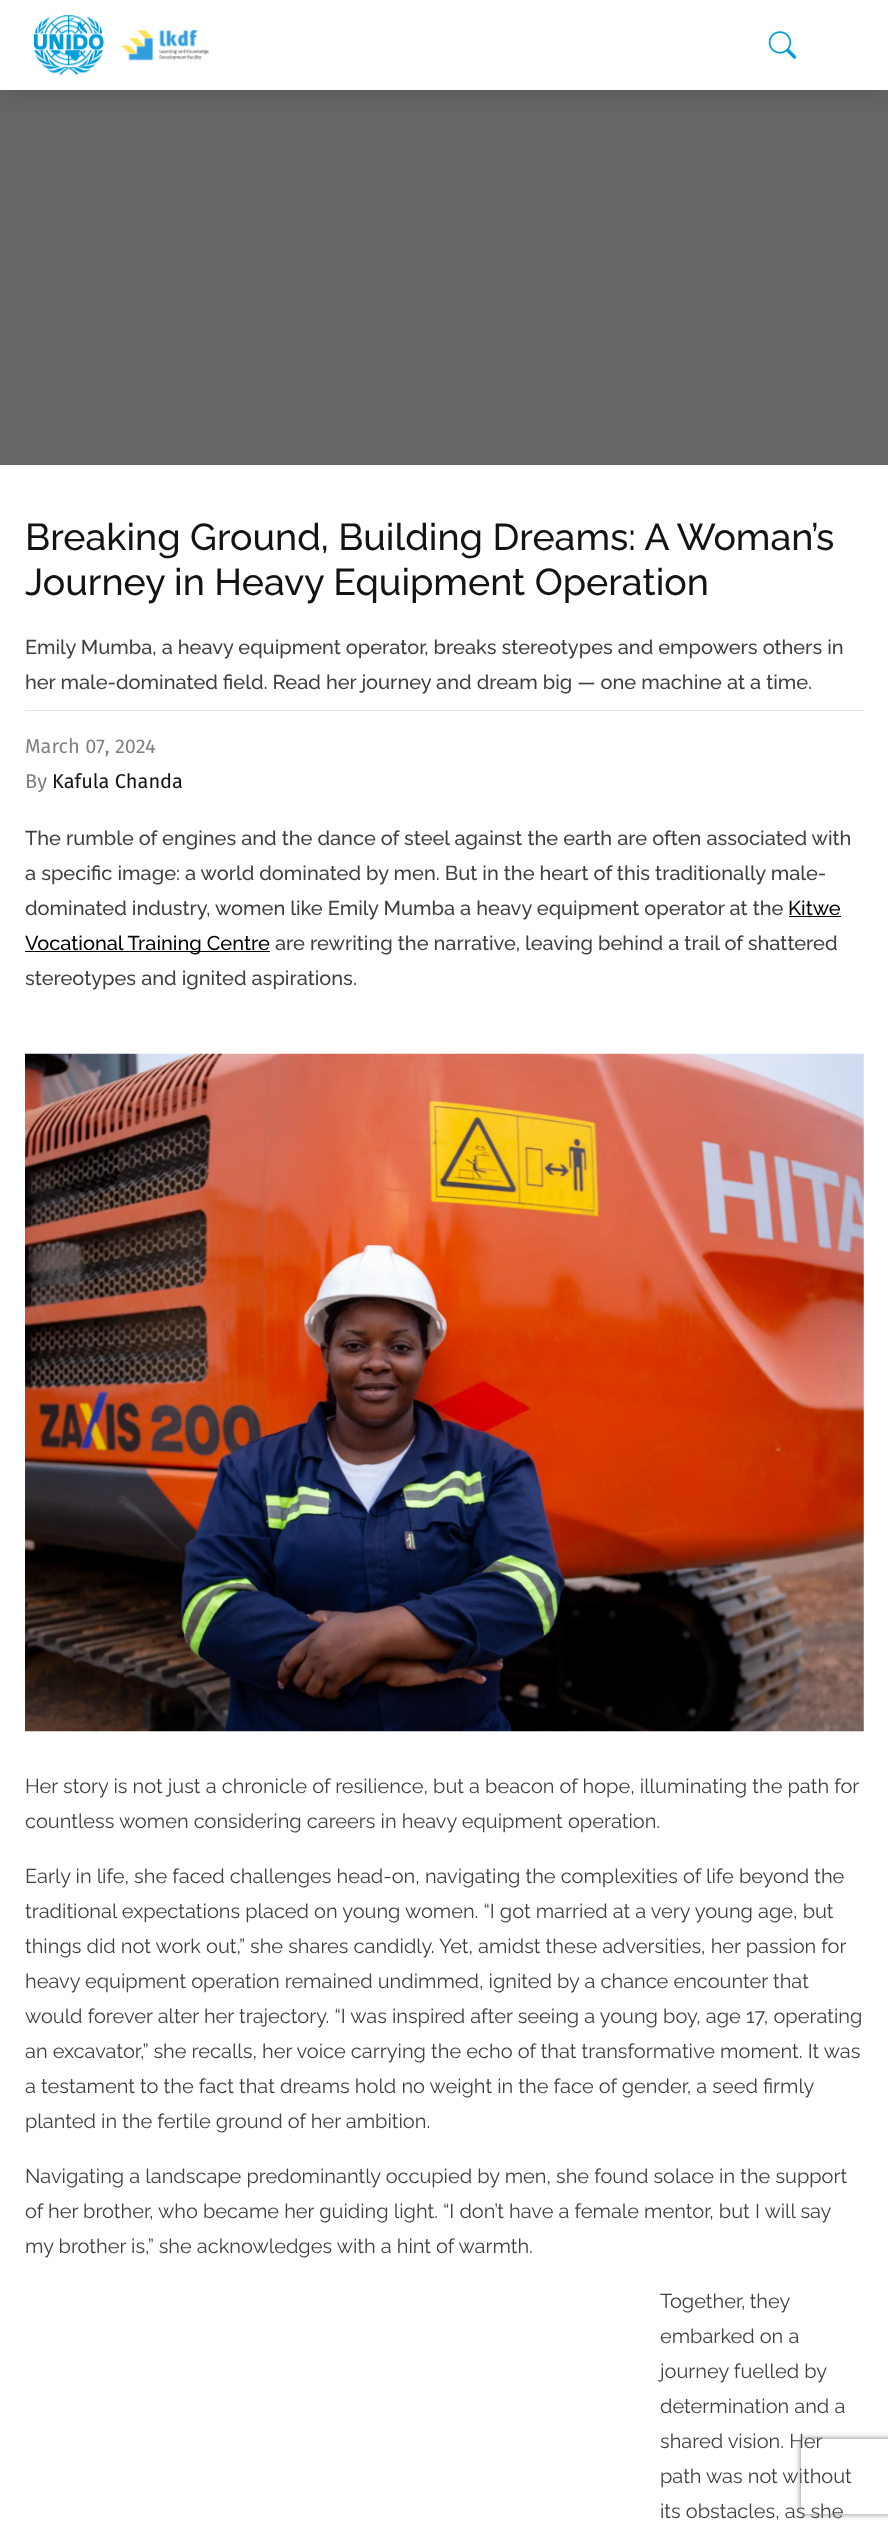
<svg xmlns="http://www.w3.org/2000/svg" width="888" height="2531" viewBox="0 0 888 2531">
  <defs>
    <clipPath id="clip1"><path d="M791 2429H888V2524H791ZM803.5 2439H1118.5C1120 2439 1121 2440 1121 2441.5V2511.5C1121 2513 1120 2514 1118.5 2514H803.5C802 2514 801 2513 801 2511.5V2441.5C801 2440 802 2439 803.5 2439Z" clip-rule="evenodd"/></clipPath>
  </defs>
  <rect width="100%" height="100%" fill="rgb(255,255,255)"/>
  <rect x="0" y="90" width="888" height="375" fill="rgb(103,103,103)"/>
  <rect x="0" y="3" width="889" height="90" fill="rgba(0,0,0,0.15)" filter="blur(15px)"/>
  <rect x="0" y="0" width="888" height="90" fill="rgb(255,255,255)"/>
  <image x="34" y="15" width="70" height="61" href="pic1.png"/>
  <image x="121" y="30" width="88" height="31" href="pic2.png"/>
  <image x="768" y="31" width="29" height="28" href="pic3.png"/>
  <g font-family="Raleway" font-size="37.5" font-weight="500" fill="rgb(19,19,19)">
    <text>
      <tspan x="25" y="550">Breaking Ground, Building Dreams: A Woman’s</tspan>
      <tspan x="25" y="595">Journey in Heavy Equipment Operation</tspan>
    </text>
  </g>
  <rect x="25" y="710" width="839" height="1" fill="rgb(222,226,230)"/>
  <g font-family="Raleway" font-size="20" font-weight="500" fill="rgb(63,63,63)">
    <text>
      <tspan x="25" y="654">Emily Mumba, a heavy equipment operator, breaks stereotypes and empowers others in</tspan>
      <tspan x="25" y="689">her male-dominated field. Read her journey and dream big — one machine at a time.</tspan>
    </text>
  </g>
  <g font-family="Fira Sans" font-size="20" fill="rgb(128,128,128)">
    <text>
      <tspan x="25" y="753">March 07, 2024</tspan>
      <tspan x="25" y="788">By</tspan>
    </text>
  </g>
  <text x="52" y="788" font-family="Fira Sans" font-size="20" fill="rgb(19,19,19)">Kafula Chanda</text>
  <g font-family="Raleway" font-size="20" font-weight="500" fill="rgb(63,63,63)">
    <text>
      <tspan x="25" y="845">The rumble of engines and the dance of steel against the earth are often associated with</tspan>
      <tspan x="25" y="880">a specific image: a world dominated by men. But in the heart of this traditionally male-</tspan>
      <tspan x="25" y="915">dominated industry, women like Emily Mumba a heavy equipment operator at the</tspan>
    </text>
  </g>
  <text x="788" y="915" font-family="Raleway" font-size="20" font-weight="500" fill="rgb(0,0,0)">Kitwe</text>
  <rect x="789" y="916" width="52" height="1" fill="rgb(0,0,0)"/>
  <rect x="25" y="951" width="245" height="1" fill="rgb(0,0,0)"/>
  <text x="25" y="950" font-family="Raleway" font-size="20" font-weight="500" fill="rgb(0,0,0)">Vocational Training Centre</text>
  <g font-family="Raleway" font-size="20" font-weight="500" fill="rgb(63,63,63)">
    <text x="275" y="950">are rewriting the narrative, leaving behind a trail of shattered</text>
    <text x="25" y="985">stereotypes and ignited aspirations.</text>
  </g>
  <image x="25" y="1053" width="839" height="679" href="pic4.png"/>
  <g font-family="Raleway" font-size="20" fill="rgb(63,63,63)">
    <text>
      <tspan x="25" y="1793">Her story is not just a chronicle of resilience, but a beacon of hope, illuminating the path for</tspan>
      <tspan x="25" y="1828">countless women considering careers in heavy equipment operation.</tspan>
    </text>
    <text>
      <tspan x="25" y="1883">Early in life, she faced challenges head-on, navigating the complexities of life beyond the</tspan>
      <tspan x="25" y="1918">traditional expectations placed on young women. “I got married at a very young age, but</tspan>
      <tspan x="25" y="1953">things did not work out,” she shares candidly. Yet, amidst these adversities, her passion for</tspan>
      <tspan x="25" y="1988">heavy equipment operation remained undimmed, ignited by a chance encounter that</tspan>
      <tspan x="25" y="2023">would forever alter her trajectory. “I was inspired after seeing a young boy, age 17, operating</tspan>
      <tspan x="25" y="2058">an excavator,” she recalls, her voice carrying the echo of that transformative moment. It was</tspan>
      <tspan x="25" y="2093">a testament to the fact that dreams hold no weight in the face of gender, a seed firmly</tspan>
      <tspan x="25" y="2128">planted in the fertile ground of her ambition.</tspan>
    </text>
    <text>
      <tspan x="25" y="2183">Navigating a landscape predominantly occupied by men, she found solace in the support</tspan>
      <tspan x="25" y="2218">of her brother, who became her guiding light. “I don’t have a female mentor, but I will say</tspan>
      <tspan x="25" y="2253">my brother is,” she acknowledges with a hint of warmth.</tspan>
    </text>
    <text>
      <tspan x="660" y="2308" word-spacing="-1">Together, they</tspan>
      <tspan x="660" y="2343">embarked on a</tspan>
      <tspan x="660" y="2378">journey fuelled by</tspan>
      <tspan x="660" y="2413">determination and a</tspan>
      <tspan x="660" y="2448">shared vision. Her</tspan>
      <tspan x="660" y="2483">path was not without</tspan>
      <tspan x="660" y="2518">its obstacles, as she</tspan>
    </text>
  </g>
  <g clip-path="url(#clip1)">
    <rect x="801" y="2439" width="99" height="75" rx="2.5" fill="rgb(128,128,128)" filter="blur(3px)"/>
  </g>
</svg>
